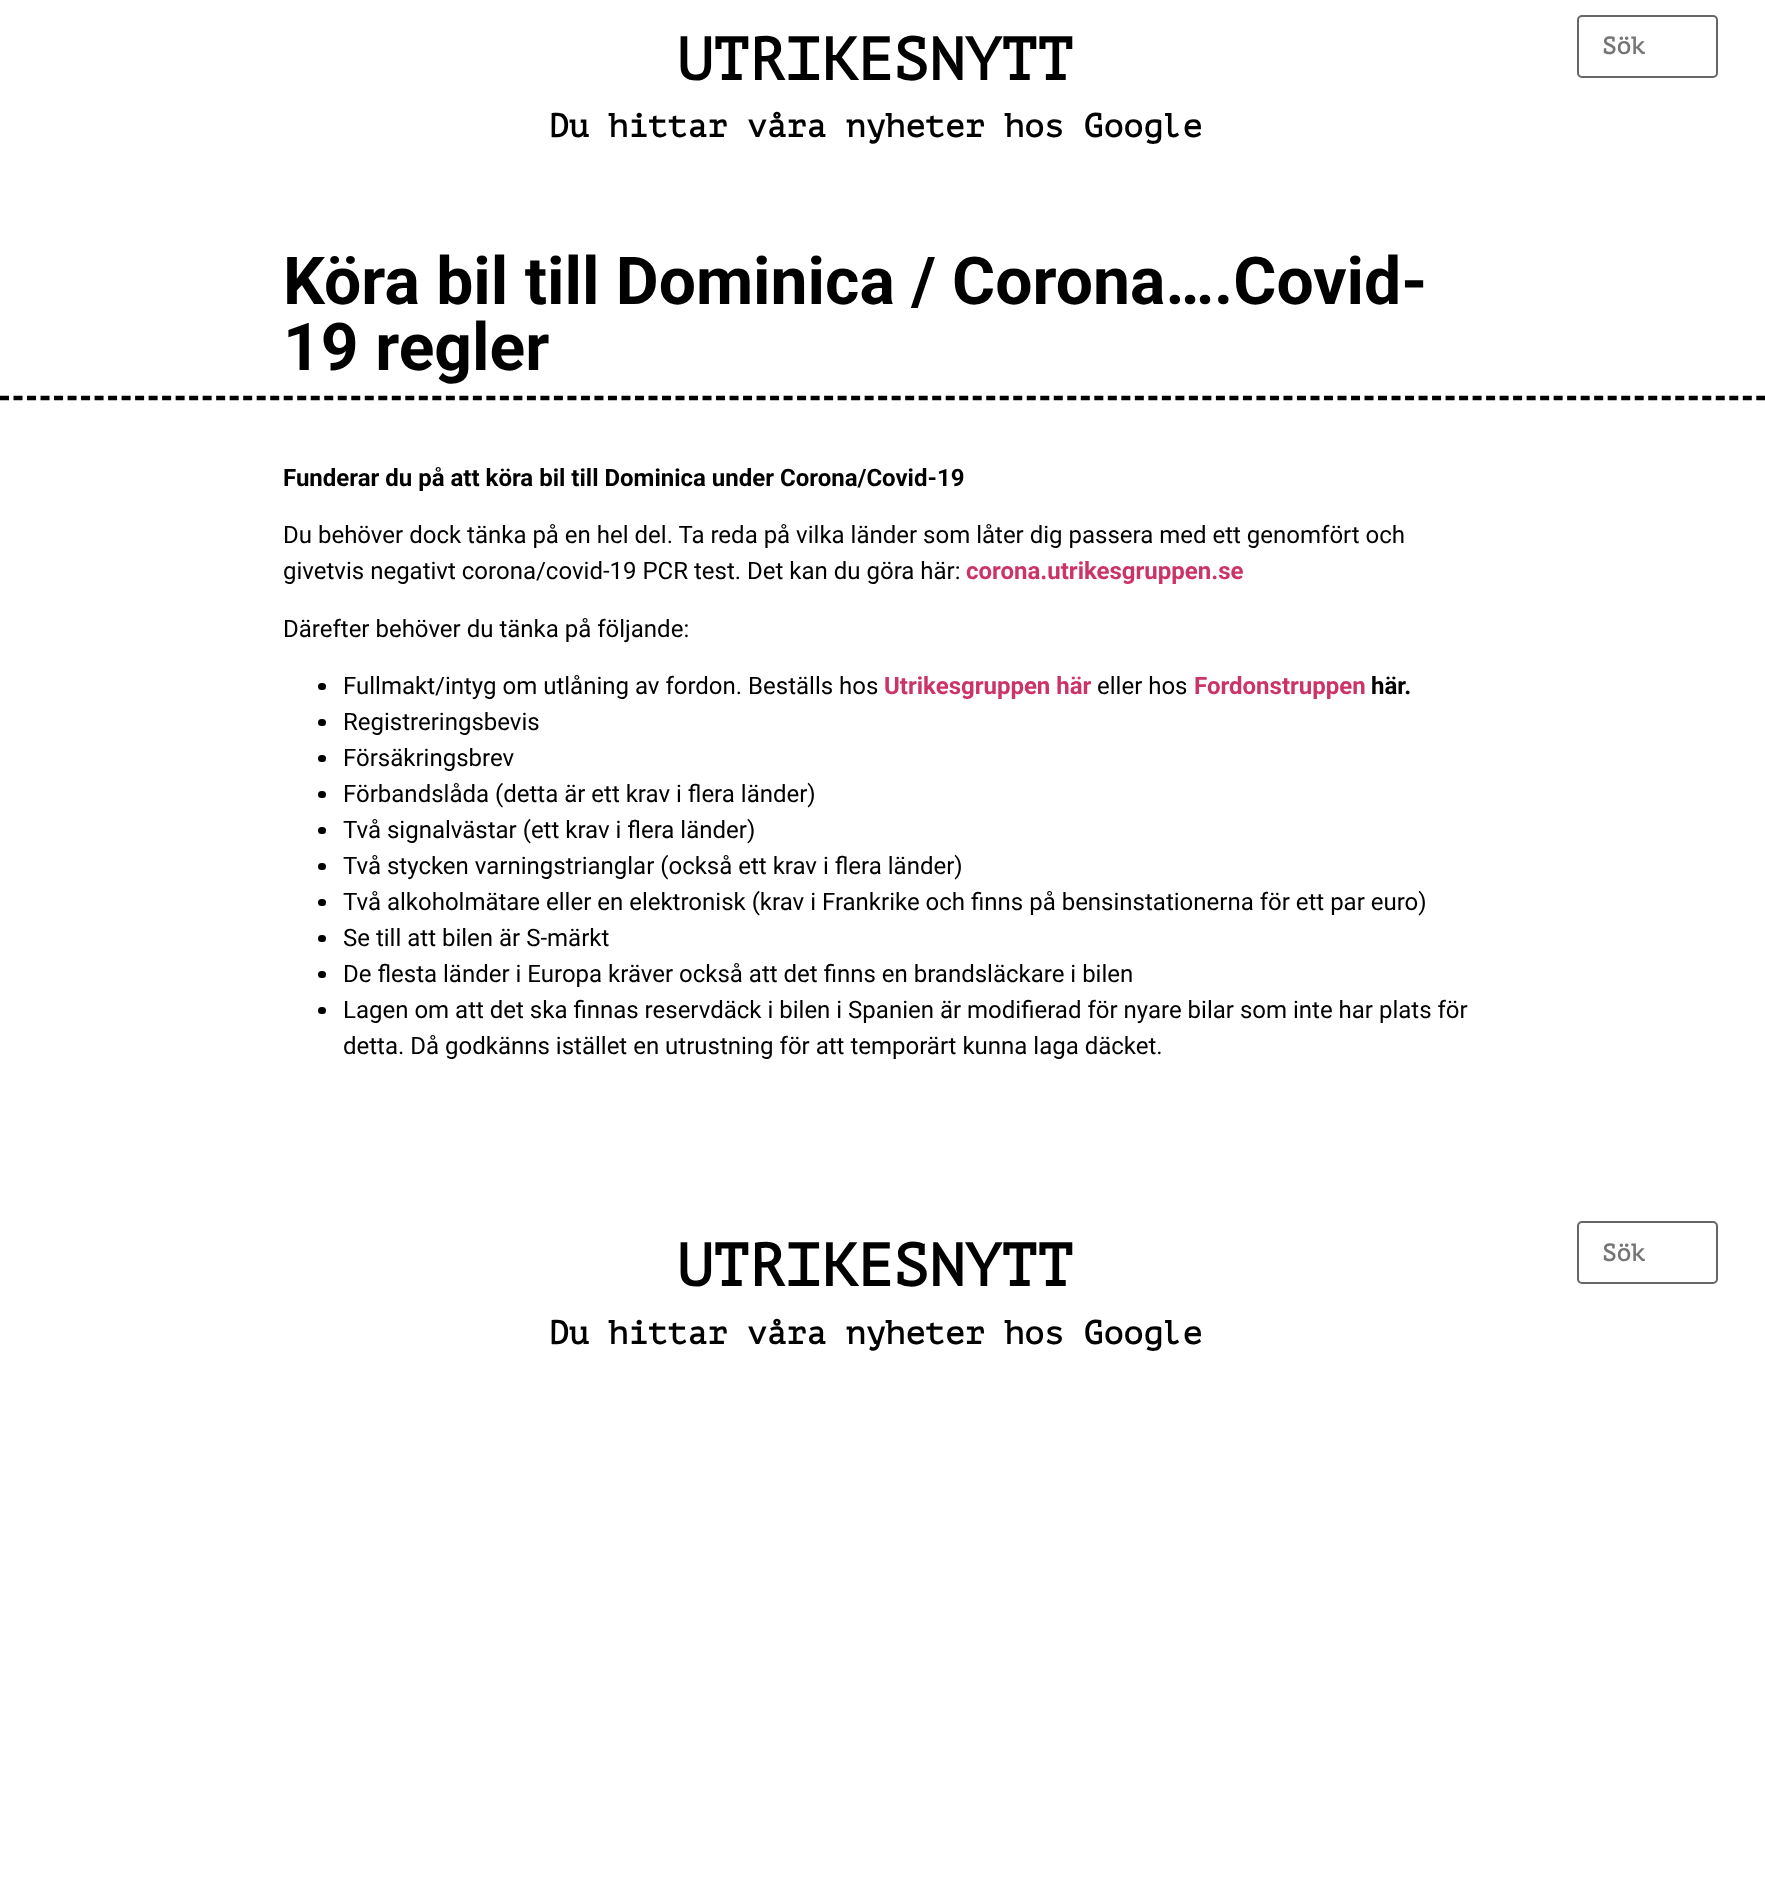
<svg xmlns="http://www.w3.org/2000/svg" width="1765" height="1903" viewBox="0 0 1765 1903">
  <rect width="100%" height="100%" fill="rgb(255,255,255)"/>
  <text x="677" y="80" font-family="PT Mono" font-size="60" font-weight="bold" fill="rgb(0,0,0)">UTRIKESNYTT</text>
  <text x="549" y="137" font-family="PT Mono" font-size="33" font-weight="bold" fill="rgb(0,0,0)">Du hittar våra nyheter hos Google</text>
  <rect x="1578" y="16" width="139" height="61" rx="4" fill="none" stroke="rgb(102,102,102)" stroke-width="2"/>
  <text x="1602" y="54" font-family="PT Mono" font-size="24" font-weight="bold" fill="rgb(117,117,117)">Sök</text>
  <path d="M0 398H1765.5" fill="none" stroke="rgb(0,0,0)" stroke-width="4.5" stroke-dasharray="9 4.51"/>
  <g font-family="Roboto" font-size="66" font-weight="bold" fill="rgb(0,0,0)">
    <text>
      <tspan x="283" y="304">Köra bil till Dominica / Corona….Covid-</tspan>
      <tspan x="283" y="370">19 regler</tspan>
    </text>
  </g>
  <text x="283" y="486" font-family="Roboto" font-size="24" font-weight="bold" fill="rgb(0,0,0)">Funderar du på att köra bil till Dominica under Corona/Covid-19</text>
  <g font-family="Roboto" font-size="24" fill="rgb(0,0,0)">
    <text>
      <tspan x="283" y="543">Du behöver dock tänka på en hel del. Ta reda på vilka länder som låter dig passera med ett genomfört och</tspan>
      <tspan x="283" y="579">givetvis negativt corona/covid-19 PCR test. Det kan du göra här:</tspan>
    </text>
  </g>
  <text x="966" y="579" font-family="Roboto" font-size="24" font-weight="bold" fill="rgb(204,51,102)">corona.utrikesgruppen.se</text>
  <text x="283" y="637" font-family="Roboto" font-size="24" fill="rgb(0,0,0)">Därefter behöver du tänka på följande:</text>
  <rect x="318" y="683" width="8" height="7" rx="3.5" fill="rgb(0,0,0)"/>
  <text x="343" y="694" font-family="Roboto" font-size="24" fill="rgb(0,0,0)">Fullmakt/intyg om utlåning av fordon. Beställs hos</text>
  <text x="884" y="694" font-family="Roboto" font-size="24" font-weight="bold" fill="rgb(204,51,102)">Utrikesgruppen här</text>
  <text x="1097" y="694" font-family="Roboto" font-size="24" fill="rgb(0,0,0)">eller hos</text>
  <text x="1194" y="694" font-family="Roboto" font-size="24" font-weight="bold" fill="rgb(204,51,102)">Fordonstruppen</text>
  <text x="1371" y="694" font-family="Roboto" font-size="24" font-weight="bold" fill="rgb(0,0,0)">här.</text>
  <rect x="318" y="719" width="8" height="7" rx="3.5" fill="rgb(0,0,0)"/>
  <text x="343" y="730" font-family="Roboto" font-size="24" fill="rgb(0,0,0)">Registreringsbevis</text>
  <rect x="318" y="755" width="8" height="7" rx="3.5" fill="rgb(0,0,0)"/>
  <text x="343" y="766" font-family="Roboto" font-size="24" fill="rgb(0,0,0)">Försäkringsbrev</text>
  <rect x="318" y="791" width="8" height="7" rx="3.5" fill="rgb(0,0,0)"/>
  <text x="343" y="802" font-family="Roboto" font-size="24" fill="rgb(0,0,0)">Förbandslåda (detta är ett krav i flera länder)</text>
  <rect x="318" y="827" width="8" height="7" rx="3.5" fill="rgb(0,0,0)"/>
  <text x="343" y="838" font-family="Roboto" font-size="24" fill="rgb(0,0,0)">Två signalvästar (ett krav i flera länder)</text>
  <rect x="318" y="863" width="8" height="7" rx="3.5" fill="rgb(0,0,0)"/>
  <text x="343" y="874" font-family="Roboto" font-size="24" fill="rgb(0,0,0)">Två stycken varningstrianglar (också ett krav i flera länder)</text>
  <rect x="318" y="899" width="8" height="7" rx="3.5" fill="rgb(0,0,0)"/>
  <text x="343" y="910" font-family="Roboto" font-size="24" fill="rgb(0,0,0)">Två alkoholmätare eller en elektronisk (krav i Frankrike och finns på bensinstationerna för ett par euro)</text>
  <rect x="318" y="935" width="8" height="7" rx="3.5" fill="rgb(0,0,0)"/>
  <text x="343" y="946" font-family="Roboto" font-size="24" fill="rgb(0,0,0)">Se till att bilen är S-märkt</text>
  <rect x="318" y="971" width="8" height="7" rx="3.5" fill="rgb(0,0,0)"/>
  <text x="343" y="982" font-family="Roboto" font-size="24" fill="rgb(0,0,0)">De flesta länder i Europa kräver också att det finns en brandsläckare i bilen</text>
  <rect x="318" y="1007" width="8" height="7" rx="3.5" fill="rgb(0,0,0)"/>
  <g font-family="Roboto" font-size="24" fill="rgb(0,0,0)">
    <text>
      <tspan x="343" y="1018">Lagen om att det ska finnas reservdäck i bilen i Spanien är modifierad för nyare bilar som inte har plats för</tspan>
      <tspan x="343" y="1054">detta. Då godkänns istället en utrustning för att temporärt kunna laga däcket.</tspan>
    </text>
  </g>
  <text x="677" y="1286" font-family="PT Mono" font-size="60" font-weight="bold" fill="rgb(0,0,0)">UTRIKESNYTT</text>
  <text x="549" y="1344" font-family="PT Mono" font-size="33" font-weight="bold" fill="rgb(0,0,0)">Du hittar våra nyheter hos Google</text>
  <rect x="1578" y="1222" width="139" height="61" rx="4" fill="none" stroke="rgb(102,102,102)" stroke-width="2"/>
  <text x="1602" y="1261" font-family="PT Mono" font-size="24" font-weight="bold" fill="rgb(117,117,117)">Sök</text>
</svg>
